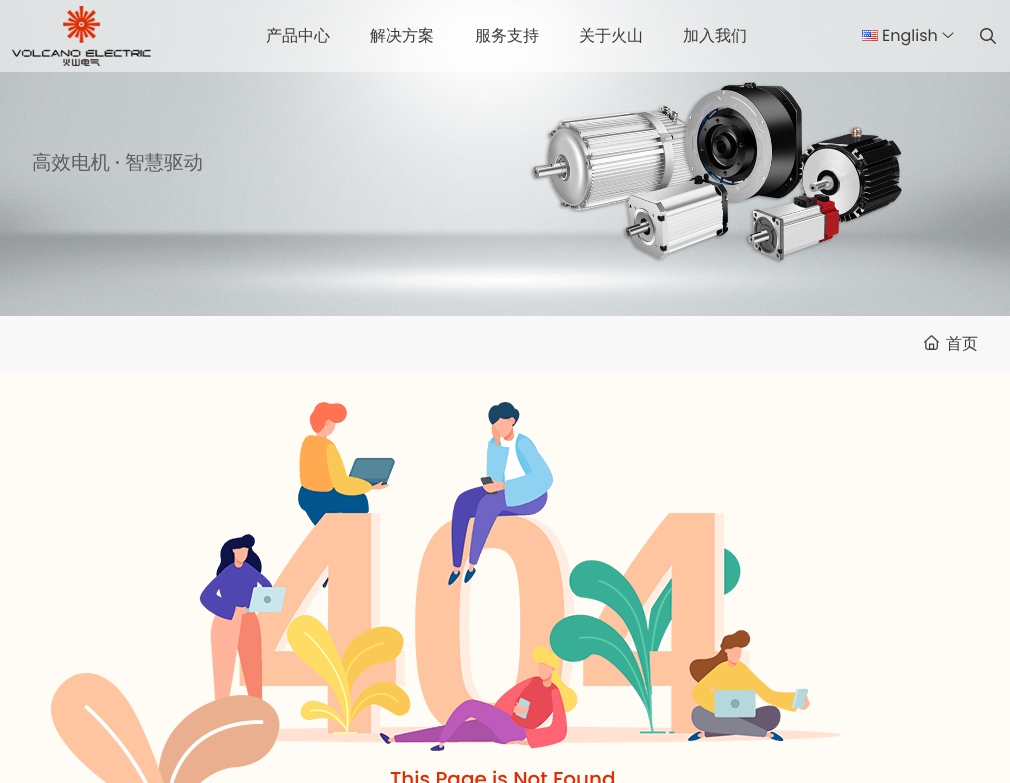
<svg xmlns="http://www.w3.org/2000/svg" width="1010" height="783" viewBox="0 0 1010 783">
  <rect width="100%" height="100%" fill="rgb(248,248,248)"/>
  <image x="0" y="0" width="1010" height="316" href="pic5.png"/>
  <rect x="0" y="0" width="1010" height="72" fill="rgba(255,255,255,0.5)"/>
  <image x="12" y="6" width="139" height="60" href="pic1.png"/>
  <g font-family="WenQuanYi Zen Hei" font-size="16" font-weight="500" fill="rgb(62,58,57)">
    <text x="266" y="41">产品中心</text>
    <text x="370" y="41">解决方案</text>
    <text x="475" y="41">服务支持</text>
    <text x="579" y="41">关于火山</text>
    <text x="683" y="41">加入我们</text>
  </g>
  <image x="862" y="30" width="16" height="11" href="pic2.png"/>
  <text x="882" y="41" font-family="Poppins" font-size="16" fill="rgb(62,58,57)">English</text>
  <image x="942" y="32" width="12" height="6" href="pic3.png"/>
  <image x="980" y="28" width="16" height="16" href="pic4.png"/>
  <text x="32" y="169" font-family="WenQuanYi Zen Hei" font-size="19.5" font-weight="500" fill="rgb(95,93,93)">高效电机</text>
  <text x="115" y="169" font-family="Poppins" font-size="19.5" font-weight="500" fill="rgb(95,93,93)">·</text>
  <text x="125" y="169" font-family="WenQuanYi Zen Hei" font-size="19.5" font-weight="500" fill="rgb(95,93,93)">智慧驱动</text>
  <image x="924" y="335" width="15" height="15" href="pic6.png"/>
  <text x="946" y="349" font-family="WenQuanYi Zen Hei" font-size="16" font-weight="500" fill="rgb(62,58,57)">首页</text>
  <rect x="0" y="372" width="1010" height="411" fill="rgb(255,252,245)"/>
  <image x="169" y="402" width="672" height="349" href="pic8.png"/>
  <image x="51" y="673" width="229" height="110" href="pic7.png"/>
  <text x="390" y="786" font-family="Poppins" font-size="20" font-weight="500" fill="rgb(225,43,0)">This Page is Not Found</text>
</svg>
